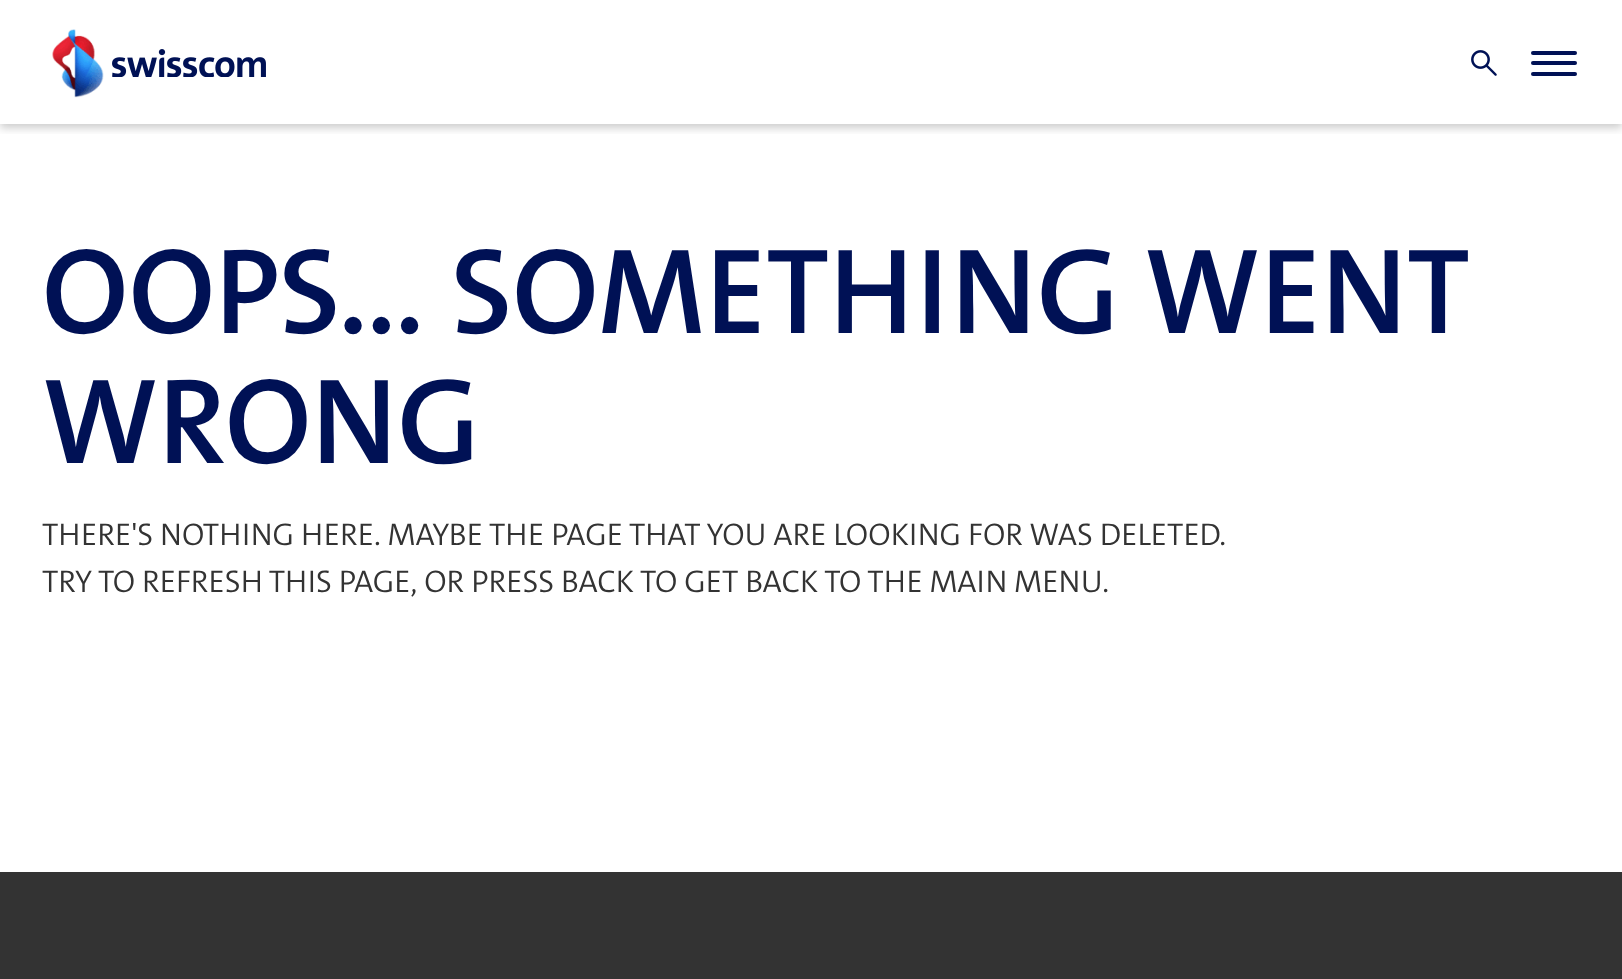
<svg xmlns="http://www.w3.org/2000/svg" width="1622" height="979" viewBox="0 0 1622 979">
  <defs>
    <clipPath id="clip1"><rect x="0" y="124" width="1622" height="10"/></clipPath>
  </defs>
  <rect width="100%" height="100%" fill="rgb(255,255,255)"/>
  <g clip-path="url(#clip1)">
    <rect x="0" y="4" width="1622" height="124" fill="rgba(0,0,0,0.2)" filter="blur(4.5px)"/>
  </g>
  <image x="52" y="29" width="52" height="69" href="pic1.png"/>
  <image x="112" y="49" width="154" height="28" href="pic2.png"/>
  <image x="1471" y="50" width="26" height="26" href="pic3.png"/>
  <rect x="1531" y="51" width="46" height="4" rx="2" fill="rgb(0,17,85)"/>
  <rect x="1531" y="61" width="46" height="4" rx="2" fill="rgb(0,17,85)"/>
  <rect x="1531" y="72" width="46" height="4" rx="2" fill="rgb(0,17,85)"/>
  <g font-family="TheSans" font-size="122.5" font-weight="600" letter-spacing="-0.2" fill="rgb(0,17,85)">
    <text>
      <tspan x="42" y="333">OOPS... SOMETHING WENT</tspan>
      <tspan x="42" y="463">WRONG</tspan>
    </text>
  </g>
  <g font-family="TheSans" font-size="31.5" font-weight="300" fill="rgb(51,51,51)">
    <text>
      <tspan x="42" y="545">THERE'S NOTHING HERE. MAYBE THE PAGE THAT YOU ARE LOOKING FOR WAS DELETED.</tspan>
      <tspan x="42" y="592">TRY TO REFRESH THIS PAGE, OR PRESS BACK TO GET BACK TO THE MAIN MENU.</tspan>
    </text>
  </g>
  <rect x="0" y="872" width="1622" height="107" fill="rgb(51,51,51)"/>
</svg>
